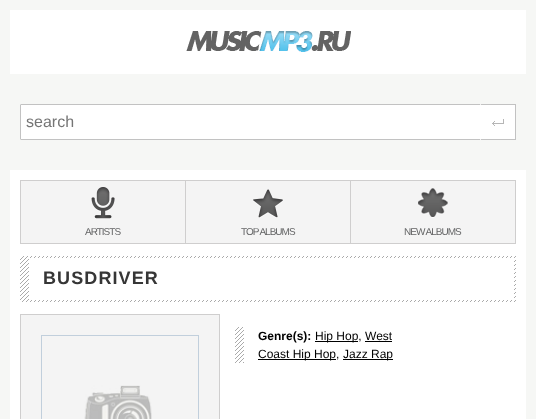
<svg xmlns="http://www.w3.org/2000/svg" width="536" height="419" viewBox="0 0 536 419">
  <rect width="100%" height="100%" fill="rgb(246,247,245)"/>
  <rect x="10" y="10" width="516" height="64" fill="rgb(255,255,255)"/>
  <image x="186" y="31" width="165" height="21" href="pic1.png"/>
  <rect x="20.5" y="104.5" width="495" height="35" rx="0.5" fill="rgb(255,255,255)" stroke="rgb(194,194,194)"/>
  <text x="26" y="127" font-family="Liberation Sans" font-size="16" fill="rgb(117,117,117)">search</text>
  <rect x="480" y="104" width="36" height="36" rx="1" fill="rgb(255,255,255)"/>
  <image x="492" y="119" width="12" height="7" href="pic2.png"/>
  <rect x="481" y="104" width="35" height="1" fill="rgb(194,194,194)"/>
  <rect x="515" y="105" width="1" height="35" fill="rgb(194,194,194)"/>
  <rect x="481" y="139" width="35" height="1" fill="rgb(194,194,194)"/>
  <rect x="10" y="170" width="516" height="249" fill="rgb(255,255,255)"/>
  <rect x="20.5" y="180.5" width="165" height="63" fill="rgb(244,244,244)" stroke="rgb(207,206,206)"/>
  <image x="91" y="187" width="24" height="32" href="pic3.png"/>
  <text x="85" y="235" font-family="Liberation Sans" font-size="10" letter-spacing="-1" fill="rgb(99,100,101)">ARTISTS</text>
  <rect x="186" y="181" width="164" height="62" fill="rgb(244,244,244)"/>
  <rect x="186" y="180" width="330" height="1" fill="rgb(207,206,206)"/>
  <rect x="350" y="180" width="1" height="64" fill="rgb(207,206,206)"/>
  <rect x="186" y="243" width="165" height="1" fill="rgb(207,206,206)"/>
  <image x="253" y="189" width="30" height="29" href="pic4.png"/>
  <text x="241" y="235" font-family="Liberation Sans" font-size="10" letter-spacing="-1" fill="rgb(99,100,101)">TOP ALBUMS</text>
  <rect x="351" y="181" width="164" height="62" fill="rgb(244,244,244)"/>
  <rect x="515" y="180" width="1" height="64" fill="rgb(207,206,206)"/>
  <rect x="351" y="243" width="165" height="1" fill="rgb(207,206,206)"/>
  <image x="418" y="188" width="30" height="30" href="pic5.png"/>
  <text x="404" y="235" font-family="Liberation Sans" font-size="10" letter-spacing="-1" fill="rgb(99,100,101)">NEW ALBUMS</text>
  <image x="20" y="256" width="496" height="46" href="pic6.png"/>
  <rect x="29" y="258" width="485" height="42" fill="rgb(255,255,255)"/>
  <text x="43" y="284" font-family="Liberation Sans" font-size="18" font-weight="bold" letter-spacing="1.1" fill="rgb(54,54,54)">BUSDRIVER</text>
  <rect x="20.5" y="314.5" width="199" height="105" fill="rgb(244,244,244)" stroke="rgb(207,206,206)"/>
  <rect x="41.5" y="335.5" width="157" height="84" fill="none" stroke="rgb(193,207,220)"/>
  <image x="84" y="385" width="68" height="34" href="pic7.png"/>
  <image x="235" y="327" width="9" height="36" href="pic8.png"/>
  <text x="258" y="340" font-family="Liberation Sans" font-size="12" font-weight="bold" fill="rgb(0,0,0)">Genre(s):</text>
  <rect x="315" y="341" width="43" height="1" fill="rgb(0,0,0)"/>
  <text x="315" y="340" font-family="Liberation Sans" font-size="12" fill="rgb(0,0,0)">Hip Hop, West</text>
  <rect x="258" y="359" width="78" height="1" fill="rgb(0,0,0)"/>
  <text x="258" y="358" font-family="Liberation Sans" font-size="12" fill="rgb(0,0,0)">Coast Hip Hop,</text>
  <rect x="365" y="341" width="27" height="1" fill="rgb(0,0,0)"/>
  <rect x="343" y="359" width="50" height="1" fill="rgb(0,0,0)"/>
  <text x="343" y="358" font-family="Liberation Sans" font-size="12" fill="rgb(0,0,0)">Jazz Rap</text>
</svg>
